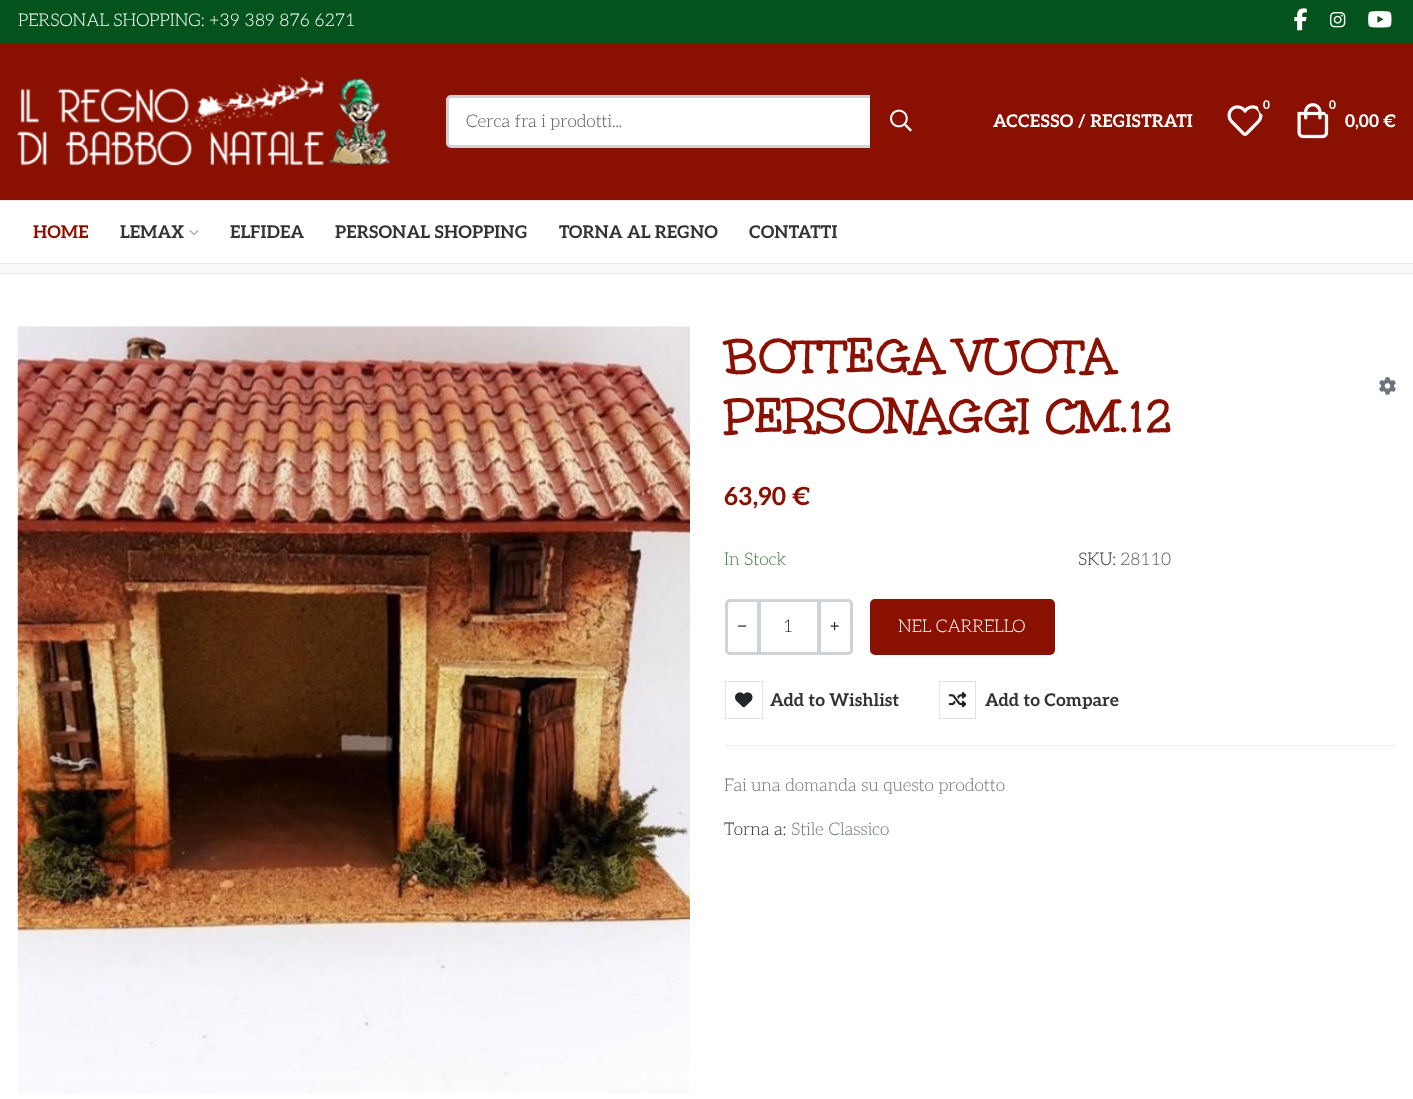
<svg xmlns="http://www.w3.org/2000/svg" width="1413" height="1099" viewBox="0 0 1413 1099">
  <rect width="100%" height="100%" fill="rgb(255,255,255)"/>
  <rect x="0" y="0" width="1413" height="43" fill="rgb(4,83,29)"/>
  <text x="18" y="26" font-family="Aleo" font-size="17.5" font-weight="300" fill="rgb(255,255,255)">PERSONAL SHOPPING: +39 389 876 6271</text>
  <image x="1294" y="8" width="13" height="23" href="pic1.png"/>
  <image x="1330" y="12" width="16" height="16" href="pic2.png"/>
  <image x="1368" y="11" width="24" height="17" href="pic3.png"/>
  <rect x="0" y="43" width="1413" height="157" fill="rgb(138,16,2)"/>
  <image x="17" y="77" width="374" height="89" href="pic4.png"/>
  <path d="M451 96.5H871.5V146.5H451C449 146.5 447.5 145 447.5 143V100C447.5 98 449 96.5 451 96.5Z" fill="rgb(255,255,255)" stroke="rgb(205,211,217)" stroke-width="3"/>
  <text x="466" y="127" font-family="Aleo" font-size="17.5" font-weight="300" fill="rgb(89,92,95)">Cerca fra i prodotti...</text>
  <path d="M870 95H926C929 95 931 97 931 100V143C931 146 929 148 926 148H870Z" fill="rgb(138,16,2)"/>
  <image x="890" y="109" width="22" height="23" href="pic5.png"/>
  <text x="993" y="127" font-family="Aleo" font-size="17.5" font-weight="bold" fill="rgb(255,255,255)">ACCESSO / REGISTRATI</text>
  <image x="1227" y="105" width="36" height="31" href="pic6.png"/>
  <circle cx="1267" cy="107" r="9" fill="rgb(138,16,2)"/>
  <text x="1263" y="109" font-family="Aleo" font-size="12" font-weight="bold" fill="rgb(255,255,255)">0</text>
  <image x="1297" y="103" width="32" height="36" href="pic7.png"/>
  <circle cx="1332" cy="107" r="9" fill="rgb(138,16,2)"/>
  <text x="1329" y="109" font-family="Aleo" font-size="12" font-weight="bold" fill="rgb(255,255,255)">0</text>
  <text x="1345" y="127" font-family="Aleo" font-size="17.5" font-weight="bold" fill="rgb(255,255,255)">0,00 €</text>
  <rect x="0" y="200" width="1413" height="1" fill="rgb(232,232,232)"/>
  <rect x="0" y="263" width="1413" height="1" fill="rgb(232,232,232)"/>
  <text x="33" y="238" font-family="Aleo" font-size="17.5" font-weight="bold" fill="rgb(138,16,2)">HOME</text>
  <text x="120" y="238" font-family="Aleo" font-size="17.5" font-weight="bold" fill="rgb(51,51,51)">LEMAX</text>
  <image x="189" y="230" width="10" height="6" href="pic8.png"/>
  <g font-family="Aleo" font-size="17.5" font-weight="bold" fill="rgb(51,51,51)">
    <text x="230" y="238">ELFIDEA</text>
    <text x="335" y="238">PERSONAL SHOPPING</text>
    <text x="559" y="238">TORNA AL REGNO</text>
    <text x="749" y="238">CONTATTI</text>
  </g>
  <rect x="0" y="264" width="1413" height="9" fill="rgb(249,249,249)"/>
  <rect x="0" y="273" width="1413" height="1" fill="rgb(232,232,232)"/>
  <image x="17" y="326" width="673" height="768" href="pic9.png"/>
  <g font-family="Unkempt" font-size="50" font-weight="bold" fill="rgb(138,16,2)">
    <text>
      <tspan x="724" y="374">BOTTEGA VUOTA</tspan>
      <tspan x="724" y="434">PERSONAGGI CM.12</tspan>
    </text>
  </g>
  <image x="1379" y="377" width="17" height="18" href="pic10.png"/>
  <text x="724" y="505" font-family="Aleo" font-size="25" font-weight="bold" fill="rgb(138,16,2)">63,90 €</text>
  <text x="724" y="565" font-family="Aleo" font-size="17.5" font-weight="300" fill="rgb(68,131,68)">In Stock</text>
  <text x="1078" y="565" font-family="Aleo" font-size="17.5" font-weight="300" fill="rgb(51,51,51)">SKU:</text>
  <text x="1120" y="565" font-family="Aleo" font-size="17.5" font-weight="300" fill="rgb(89,92,95)">28110</text>
  <rect x="759.5" y="600.5" width="59" height="53" fill="none" stroke="rgb(205,211,217)" stroke-width="3"/>
  <path d="M730 600.5H758.5V653.5H730C728 653.5 726.5 652 726.5 650V604C726.5 602 728 600.5 730 600.5Z" fill="rgb(255,255,255)" stroke="rgb(205,211,217)" stroke-width="3"/>
  <image x="737" y="625" width="10" height="2" href="pic11.png"/>
  <text x="783" y="632" font-family="Aleo" font-size="17.5" font-weight="300" fill="rgb(51,51,51)">1</text>
  <path d="M819.5 600.5H848C850 600.5 851.5 602 851.5 604V650C851.5 652 850 653.5 848 653.5H819.5Z" fill="rgb(255,255,255)" stroke="rgb(205,211,217)" stroke-width="3"/>
  <image x="830" y="621" width="9" height="10" href="pic12.png"/>
  <rect x="871.5" y="600.5" width="182" height="53" rx="3.5" fill="rgb(138,16,2)" stroke="rgb(138,16,2)" stroke-width="3"/>
  <text x="898" y="632" font-family="Aleo" font-size="17.5" font-weight="300" fill="rgb(255,255,255)">NEL CARRELLO</text>
  <rect x="725.5" y="681.5" width="37" height="37" fill="none" stroke="rgb(223,227,231)"/>
  <image x="735" y="692" width="18" height="16" href="pic13.png"/>
  <text x="770" y="706" font-family="Aleo" font-size="17.5" font-weight="bold" fill="rgb(51,51,51)">Add to Wishlist</text>
  <rect x="939.5" y="681.5" width="36" height="37" fill="none" stroke="rgb(223,227,231)"/>
  <image x="948" y="692" width="19" height="16" href="pic14.png"/>
  <text x="985" y="706" font-family="Aleo" font-size="17.5" font-weight="bold" fill="rgb(51,51,51)">Add to Compare</text>
  <rect x="725" y="745" width="671" height="1" fill="rgb(234,237,240)"/>
  <text x="724" y="791" font-family="Aleo" font-size="17.5" font-weight="300" fill="rgb(109,117,126)">Fai una domanda su questo prodotto</text>
  <text x="724" y="835" font-family="Aleo" font-size="17.5" font-weight="300" fill="rgb(51,51,51)">Torna a:</text>
  <text x="791" y="835" font-family="Aleo" font-size="17.5" font-weight="300" fill="rgb(109,117,126)">Stile Classico</text>
</svg>
